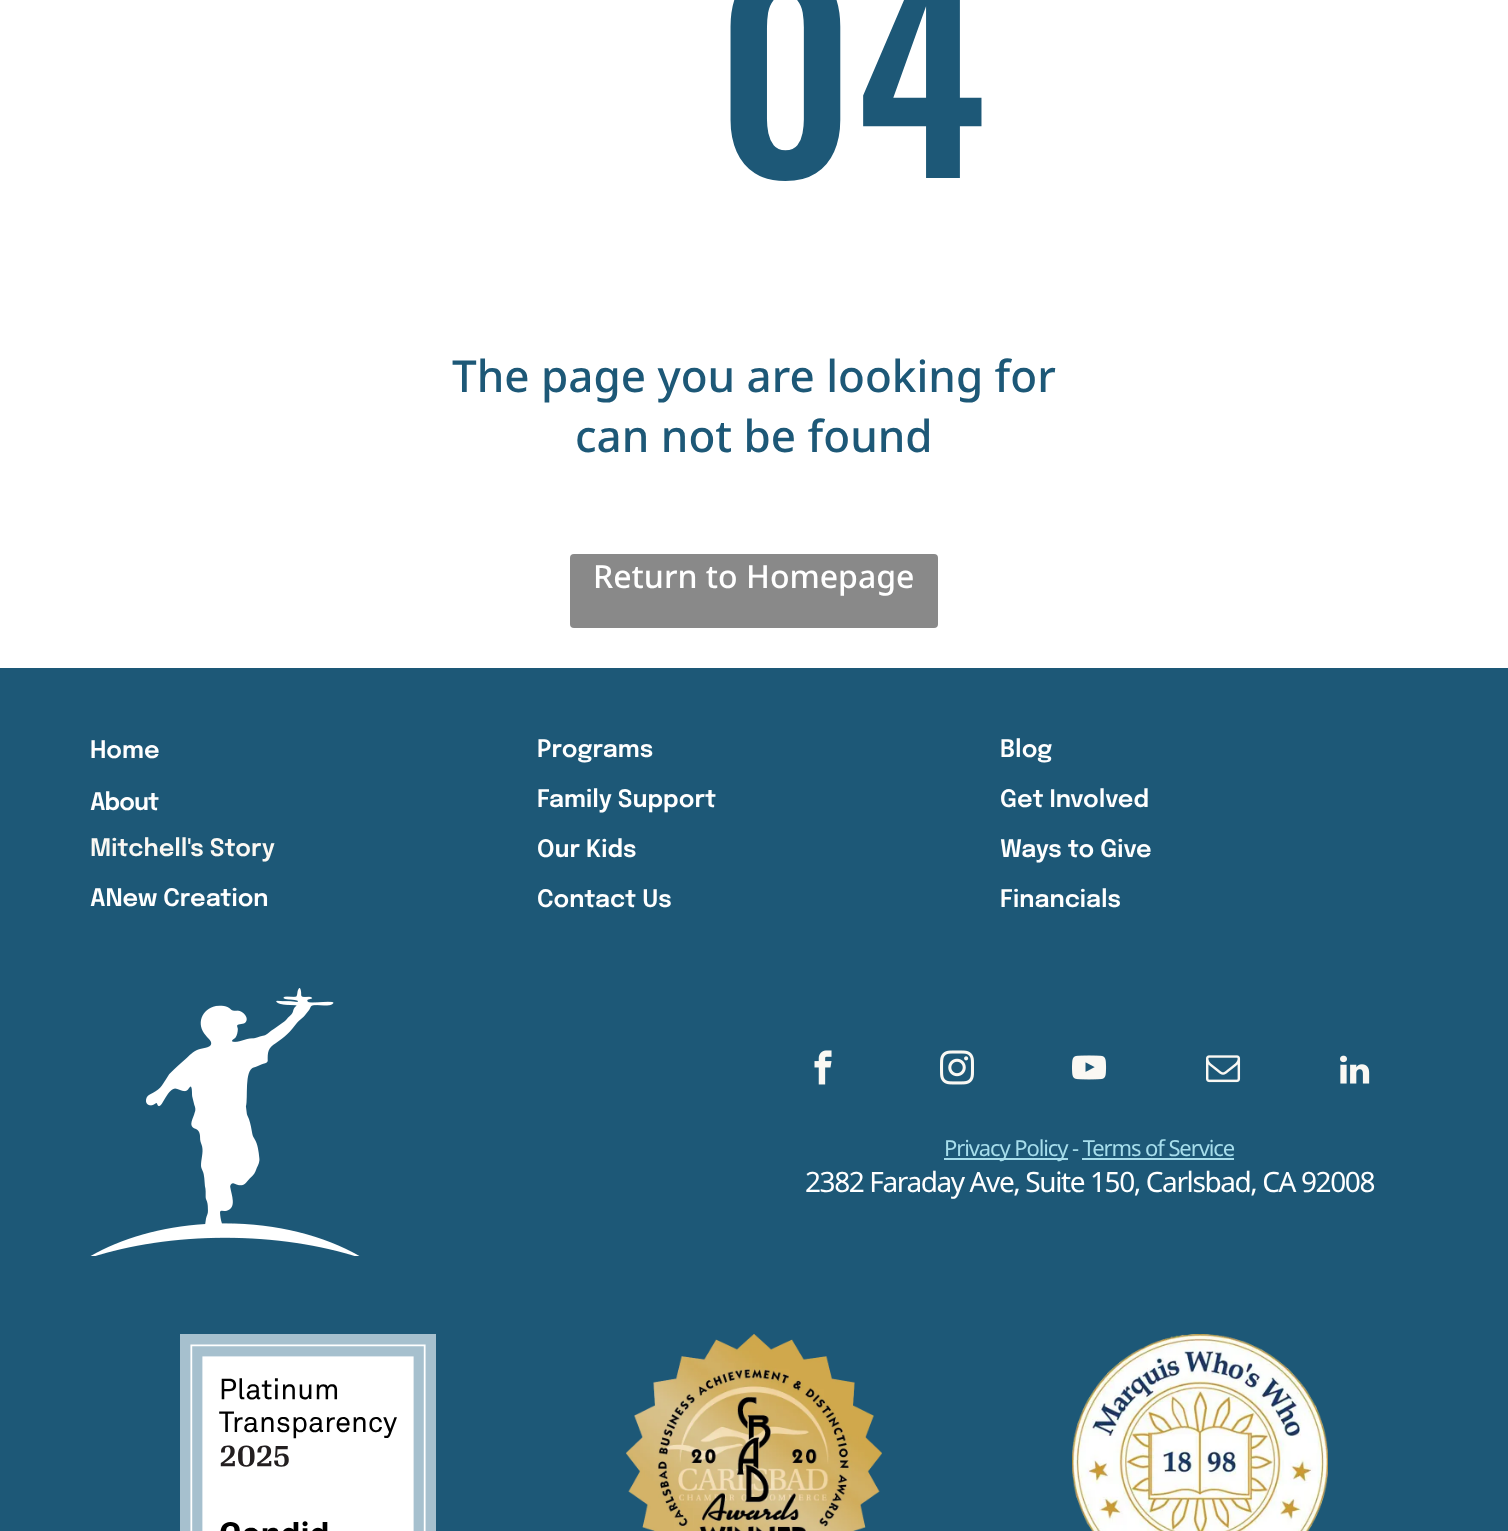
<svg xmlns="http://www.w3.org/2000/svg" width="1508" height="1531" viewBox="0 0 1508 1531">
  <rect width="100%" height="100%" fill="rgb(255,255,255)"/>
  <text x="716" y="178" font-family="Oswald" font-size="260" font-weight="500" fill="rgb(29,88,119)">04</text>
  <g font-family="Noto Sans" font-size="44" font-weight="500" fill="rgb(29,88,119)">
    <text x="452" y="392">The page you are looking for</text>
    <text x="575" y="452">can not be found</text>
  </g>
  <rect x="570" y="554" width="368" height="74" rx="4" fill="rgb(137,137,137)"/>
  <text x="593" y="588" font-family="Noto Sans" font-size="32" font-weight="500" fill="rgb(255,255,255)">Return to Homepage</text>
  <rect x="0" y="668" width="1508" height="863" fill="rgb(29,88,119)"/>
  <text x="90" y="758" font-family="Epilogue" font-size="24" font-weight="600" fill="rgb(255,255,255)">Home</text>
  <text x="90" y="810" font-family="Epilogue" font-size="24" font-weight="600" letter-spacing="-1" fill="rgb(255,255,255)">About</text>
  <text x="90" y="856" font-family="Epilogue" font-size="24" font-weight="600" fill="rgb(250,248,243)">Mitchell's Story</text>
  <g font-family="Epilogue" font-size="24" font-weight="600" fill="rgb(255,255,255)">
    <text x="90" y="906">ANew Creation</text>
    <text x="537" y="757">Programs</text>
    <text x="537" y="807">Family Support</text>
    <text x="537" y="857">Our Kids</text>
    <text x="537" y="907">Contact Us</text>
    <text x="1000" y="757">Blog</text>
    <text x="1000" y="807">Get Involved</text>
    <text x="1000" y="857">Ways to Give</text>
    <text x="1000" y="907">Financials</text>
  </g>
  <image x="90" y="988" width="270" height="268" href="pic1.png"/>
  <image x="814" y="1050" width="18" height="35" href="pic2.png"/>
  <image x="940" y="1050" width="34" height="35" href="pic3.png"/>
  <image x="1072" y="1055" width="35" height="25" href="pic4.png"/>
  <image x="1206" y="1055" width="35" height="28" href="pic5.png"/>
  <image x="1340" y="1055" width="30" height="29" href="pic6.png"/>
  <rect x="944" y="1158" width="124" height="2" fill="rgb(167,222,236)"/>
  <text x="944" y="1156" font-family="Noto Sans" font-size="22" letter-spacing="-1.1" fill="rgb(167,222,236)">Privacy Policy - Terms of Service</text>
  <rect x="1082" y="1158" width="152" height="2" fill="rgb(167,222,236)"/>
  <text x="805" y="1192" font-family="Noto Sans" font-size="28" letter-spacing="-1.4" fill="rgb(255,255,255)">2382 Faraday Ave, Suite 150, Carlsbad, CA 92008</text>
  <image x="180" y="1334" width="256" height="197" href="pic7.png"/>
  <image x="626" y="1334" width="256" height="197" href="pic8.png"/>
  <image x="1072" y="1334" width="256" height="197" href="pic9.png"/>
</svg>
